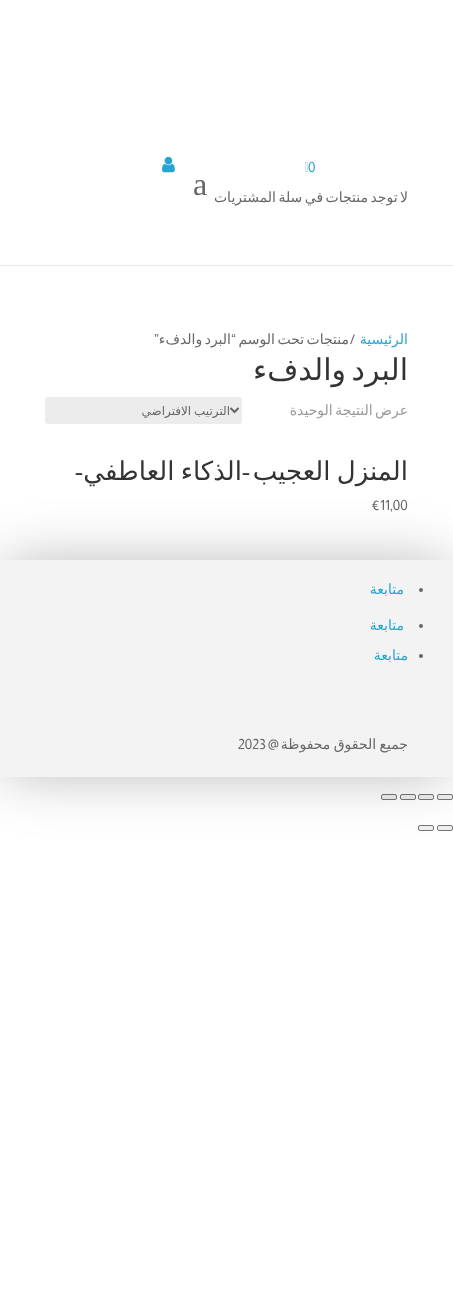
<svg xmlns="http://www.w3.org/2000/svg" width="453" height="1302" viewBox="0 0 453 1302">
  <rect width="100%" height="100%" fill="rgb(255,255,255)"/>
  <rect x="0" y="265" width="453" height="1" fill="rgb(229,229,229)"/>
  <text x="308" y="172" font-family="Almarai" font-size="14" fill="rgb(37,165,208)">0</text>
  <image x="305" y="161" width="3" height="11" href="pic1.png"/>
  <text x="408" y="202" word-spacing="-2" font-family="DejaVu Sans" font-size="14" direction="rtl" fill="rgb(102,102,102)">لا توجد منتجات في سلة المشتريات</text>
  <text x="193" y="195" font-family="Liberation Serif" font-size="32" fill="rgb(102,102,102)">a</text>
  <image x="162" y="156" width="13" height="17" href="pic2.png"/>
  <text x="408" y="344" font-family="DejaVu Sans" font-size="14" direction="rtl" fill="rgb(37,165,208)">الرئيسية</text>
  <text x="349" y="344" word-spacing="-2" font-family="DejaVu Sans" font-size="14" direction="rtl" fill="rgb(102,102,102)">منتجات تحت الوسم</text>
  <g font-family="Almarai" font-size="14" direction="rtl" fill="rgb(102,102,102)">
    <text x="355" y="344">/</text>
    <text x="236" y="344">“</text>
  </g>
  <text x="231" y="344" word-spacing="-2" font-family="DejaVu Sans" font-size="14" direction="rtl" fill="rgb(102,102,102)">البرد والدفء</text>
  <text x="159" y="344" font-family="Almarai" font-size="14" direction="rtl" fill="rgb(102,102,102)">”</text>
  <text x="408" y="380" word-spacing="-4" font-family="DejaVu Sans" font-size="30" direction="rtl" fill="rgb(51,51,51)">البرد والدفء</text>
  <text x="408" y="415" word-spacing="-2" font-family="DejaVu Sans" font-size="14" direction="rtl" fill="rgb(153,153,153)">عرض النتيجة الوحيدة</text>
  <rect x="45" y="397" width="197" height="27" rx="3" fill="rgb(236,236,236)"/>
  <path d="M230.5 408L234.5 412L238.5 408" fill="none" stroke="rgb(102,102,102)" stroke-width="2"/>
  <text x="230" y="415" word-spacing="-1" font-family="DejaVu Sans" font-size="12" direction="rtl" fill="rgb(102,102,102)">الترتيب الافتراضي</text>
  <text x="408" y="480" word-spacing="-2" font-family="DejaVu Sans" font-size="26" direction="rtl" fill="rgb(51,51,51)">المنزل العجيب</text>
  <text x="250" y="480" font-family="Almarai" font-size="26" direction="rtl" fill="rgb(51,51,51)">-</text>
  <text x="242" y="480" word-spacing="-2" font-family="DejaVu Sans" font-size="26" direction="rtl" fill="rgb(51,51,51)">الذكاء العاطفي</text>
  <text x="83" y="480" font-family="Almarai" font-size="26" direction="rtl" fill="rgb(51,51,51)">-</text>
  <text x="371" y="510" font-family="Almarai" font-size="14" fill="rgb(102,102,102)">€11,00</text>
  <rect x="437.5" y="794.5" width="15" height="5" rx="1.5" fill="rgb(239,239,239)" stroke="rgb(118,118,118)"/>
  <rect x="418.5" y="794.5" width="15" height="5" rx="1.5" fill="rgb(239,239,239)" stroke="rgb(118,118,118)"/>
  <rect x="400.5" y="794.5" width="15" height="5" rx="1.5" fill="rgb(239,239,239)" stroke="rgb(118,118,118)"/>
  <rect x="381.5" y="794.5" width="15" height="5" rx="1.5" fill="rgb(239,239,239)" stroke="rgb(118,118,118)"/>
  <rect x="437.5" y="825.5" width="15" height="5" rx="1.5" fill="rgb(239,239,239)" stroke="rgb(118,118,118)"/>
  <rect x="418.5" y="825.5" width="15" height="5" rx="1.5" fill="rgb(239,239,239)" stroke="rgb(118,118,118)"/>
  <rect x="5" y="565" width="443" height="207" fill="rgba(0,0,0,0.3)" filter="blur(30px)"/>
  <rect x="0" y="560" width="453" height="217" fill="rgb(243,243,243)"/>
  <circle cx="421" cy="590" r="2" fill="rgb(102,102,102)"/>
  <text x="404" y="594" font-family="DejaVu Sans" font-size="14" direction="rtl" fill="rgb(37,165,208)">متابعة</text>
  <circle cx="421" cy="626" r="2" fill="rgb(102,102,102)"/>
  <text x="404" y="630" font-family="DejaVu Sans" font-size="14" direction="rtl" fill="rgb(37,165,208)">متابعة</text>
  <circle cx="421" cy="656" r="2" fill="rgb(102,102,102)"/>
  <text x="408" y="660" font-family="DejaVu Sans" font-size="14" direction="rtl" fill="rgb(37,165,208)">متابعة</text>
  <text x="408" y="749" word-spacing="-1" font-family="DejaVu Sans" font-size="14" direction="rtl" fill="rgb(102,102,102)">جميع الحقوق محفوظة</text>
  <text x="279" y="749" font-family="Almarai" font-size="14" direction="rtl" fill="rgb(102,102,102)">@</text>
  <text x="238" y="749" font-family="Almarai" font-size="14" fill="rgb(102,102,102)">2023</text>
</svg>
